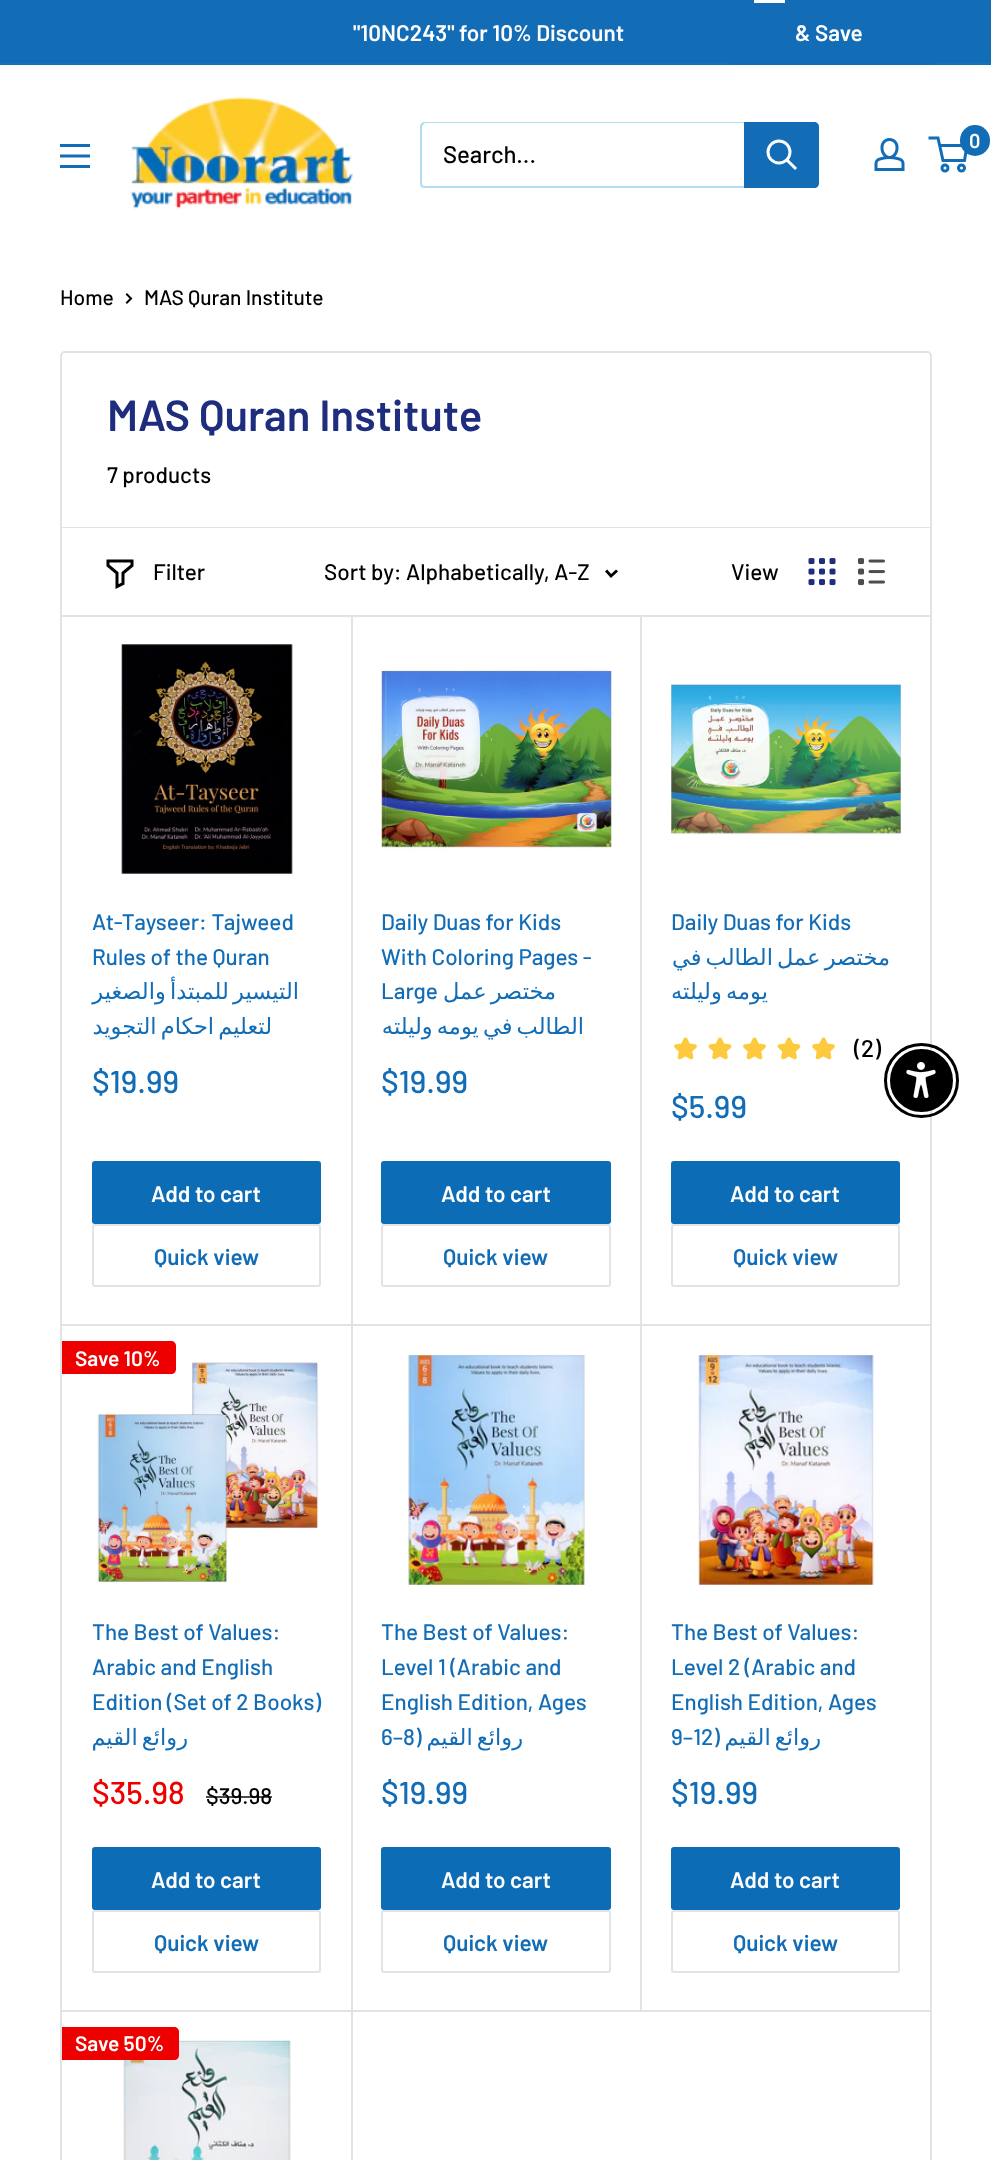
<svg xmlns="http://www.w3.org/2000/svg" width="991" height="2160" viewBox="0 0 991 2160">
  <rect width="100%" height="100%" fill="rgb(255,255,255)"/>
  <rect x="0" y="0" width="991" height="63" fill="rgb(18,109,182)"/>
  <rect x="0" y="63" width="991" height="2" fill="rgb(13,117,189)"/>
  <text x="353" y="41" font-family="Barlow" font-size="22.5" font-weight="600" fill="rgb(255,255,255)">"10NC243" for 10% Discount</text>
  <path d="M731 63V65H932V-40V63Z" fill="rgb(18,109,182)"/>
  <rect x="754" y="0" width="31" height="3" fill="rgb(255,255,255)"/>
  <text x="795" y="41" font-family="Barlow" font-size="22.5" font-weight="600" fill="rgb(255,255,255)">&amp; Save</text>
  <image x="130" y="97" width="223" height="112" href="pic1.png"/>
  <image x="874" y="138" width="31" height="33" href="pic2.png"/>
  <circle cx="945" cy="168" r="3" fill="none" stroke="rgb(18,109,182)" stroke-width="3"/>
  <circle cx="961.5" cy="168" r="3" fill="none" stroke="rgb(18,109,182)" stroke-width="3"/>
  <path d="M939.5 145.5H967L964.5 160.5H943L938 138H928.5" fill="none" stroke="rgb(18,109,182)" stroke-width="3"/>
  <rect x="960" y="125" width="30" height="31" rx="15" fill="rgb(18,109,182)"/>
  <text x="969" y="148" font-family="Barlow" font-size="20" font-weight="600" fill="rgb(255,255,255)">0</text>
  <image x="60" y="144" width="30" height="24" href="pic3.png"/>
  <path d="M421 185C421 187 423 188 425 188H814C817 188 819 186 819 183V127C819 126 819 125 818 124V182C818 184 815 186 813 186H423Z" fill="rgb(179,220,240)"/>
  <path d="M426 123H817C816 122 815 122 814 122H425C422 122 420 124 420 127V183C420 185 421 187 423 188C423 187 422 186 422 184V128C422 125 424 123 426 123Z" fill="rgba(0,137,204,0.3)"/>
  <text x="443" y="163" font-family="Barlow" font-size="24" font-weight="500" fill="rgb(0,0,0)">Search...</text>
  <path d="M744 122H814C817 122 819 124 819 127V183C819 186 817 188 814 188H744Z" fill="rgb(18,109,182)"/>
  <path d="M795 168L787.5 160.5" fill="none" stroke="rgb(255,255,255)" stroke-width="3" stroke-linecap="square"/>
  <circle cx="779" cy="152" r="11" fill="none" stroke="rgb(255,255,255)" stroke-width="3"/>
  <text x="60" y="305" font-family="Barlow" font-size="21" font-weight="500" fill="rgb(0,0,0)">Home</text>
  <path d="M127 294.5L131 298.5L127 302.5" fill="none" stroke="rgb(0,0,0)" stroke-width="2" stroke-linecap="square"/>
  <text x="144" y="305" font-family="Barlow" font-size="21" font-weight="500" fill="rgb(0,0,0)">MAS Quran Institute</text>
  <rect x="61" y="352" width="870" height="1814" rx="4" fill="none" stroke="rgb(225,227,228)" stroke-width="2"/>
  <text x="107" y="431" font-family="Barlow" font-size="43.5" font-weight="600" fill="rgb(30,45,125)">MAS Quran Institute</text>
  <text x="107" y="483" font-family="Barlow" font-size="22.5" font-weight="500" fill="rgb(0,0,0)">7 products</text>
  <rect x="62" y="527" width="868" height="1" fill="rgb(225,227,228)"/>
  <rect x="62" y="1324" width="289" height="2" fill="rgb(225,227,228)"/>
  <image x="121" y="644" width="172" height="230" href="pic6.png"/>
  <g font-family="Barlow" font-size="22.5" font-weight="500" fill="rgb(18,109,182)">
    <text>
      <tspan x="92" y="930">At-Tayseer: Tajweed</tspan>
      <tspan x="92" y="965">Rules of the Quran</tspan>
    </text>
  </g>
  <g font-family="DejaVu Sans" font-size="22.5" direction="rtl" fill="rgb(18,109,182)">
    <text x="299" y="999" word-spacing="-3">التيسير للمبتدأ والصغير</text>
    <text x="272" y="1034" word-spacing="-3">لتعليم احكام التجويد</text>
  </g>
  <text x="92" y="1093" font-family="Barlow" font-size="31.5" font-weight="500" fill="rgb(18,109,182)">$19.99</text>
  <rect x="92" y="1161" width="229" height="63" rx="3" fill="rgb(13,108,182)"/>
  <text x="151" y="1202" font-family="Barlow" font-size="22.5" font-weight="600" fill="rgb(255,255,255)">Add to cart</text>
  <rect x="93" y="1225" width="227" height="61" rx="2" fill="none" stroke="rgb(225,227,228)" stroke-width="2"/>
  <text x="154" y="1265" font-family="Barlow" font-size="22.5" font-weight="600" fill="rgb(18,109,182)">Quick view</text>
  <path d="M63 1324V1325H353V615H351V1324Z" fill="rgb(225,227,228)"/>
  <image x="381" y="670" width="231" height="180" href="pic7.png"/>
  <g font-family="Barlow" font-size="22.5" font-weight="500" fill="rgb(18,109,182)">
    <text>
      <tspan x="381" y="930">Daily Duas for Kids</tspan>
      <tspan x="381" y="965">With Coloring Pages -</tspan>
      <tspan x="381" y="999">Large</tspan>
    </text>
  </g>
  <g font-family="DejaVu Sans" font-size="22.5" direction="rtl" fill="rgb(18,109,182)">
    <text x="556" y="999" word-spacing="-3">مختصر عمل</text>
    <text x="584" y="1034" word-spacing="-3">الطالب في يومه وليلته</text>
  </g>
  <text x="381" y="1093" font-family="Barlow" font-size="31.5" font-weight="500" fill="rgb(18,109,182)">$19.99</text>
  <rect x="381" y="1161" width="230" height="63" rx="3" fill="rgb(13,108,182)"/>
  <text x="441" y="1202" font-family="Barlow" font-size="22.5" font-weight="600" fill="rgb(255,255,255)">Add to cart</text>
  <rect x="382" y="1225" width="228" height="61" rx="2" fill="none" stroke="rgb(225,227,228)" stroke-width="2"/>
  <text x="443" y="1265" font-family="Barlow" font-size="22.5" font-weight="600" fill="rgb(18,109,182)">Quick view</text>
  <path d="M351 1324V1326H641V617H640V1324Z" fill="rgb(225,227,228)"/>
  <path d="M353 1324V1325H642V615H640V1324Z" fill="rgb(225,227,228)"/>
  <rect x="62" y="615" width="868" height="2" fill="rgb(225,227,228)"/>
  <path d="M132 565.5L123 573V583.5L117 586.5V573L108 565.5V561H132Z" fill="none" stroke="rgb(0,0,0)" stroke-width="3" stroke-linecap="square"/>
  <g font-family="Barlow" font-size="22.5" font-weight="500" fill="rgb(0,0,0)">
    <text x="153" y="580">Filter</text>
    <text x="324" y="580">Sort by: Alphabetically, A-Z</text>
  </g>
  <path d="M616 571.5L611 576L607 571.5" fill="none" stroke="rgb(0,0,0)" stroke-width="2.8" stroke-linecap="square"/>
  <text x="731" y="580" font-family="Barlow" font-size="22.5" font-weight="500" fill="rgb(0,0,0)">View</text>
  <image x="808" y="558" width="28" height="28" href="pic4.png"/>
  <image x="858" y="558" width="27" height="28" href="pic5.png"/>
  <image x="671" y="684" width="230" height="151" href="pic8.png"/>
  <text x="671" y="930" font-family="Barlow" font-size="22.5" font-weight="500" fill="rgb(18,109,182)">Daily Duas for Kids</text>
  <g font-family="DejaVu Sans" font-size="22.5" direction="rtl" fill="rgb(18,109,182)">
    <text x="890" y="965" word-spacing="-3">مختصر عمل الطالب في</text>
    <text x="768" y="999" word-spacing="-3">يومه وليلته</text>
  </g>
  <image x="674" y="1037" width="23" height="23" href="pic9.png"/>
  <image x="708" y="1037" width="24" height="23" href="pic10.png"/>
  <image x="743" y="1037" width="23" height="23" href="pic9.png"/>
  <image x="777" y="1037" width="24" height="23" href="pic10.png"/>
  <image x="812" y="1037" width="23" height="23" href="pic9.png"/>
  <text x="854" y="1057" font-family="Barlow" font-size="24" font-weight="500" fill="rgb(0,0,0)">(2)</text>
  <text x="671" y="1118" font-family="Barlow" font-size="31.5" font-weight="500" fill="rgb(18,109,182)">$5.99</text>
  <rect x="671" y="1161" width="229" height="63" rx="3" fill="rgb(13,108,182)"/>
  <text x="730" y="1202" font-family="Barlow" font-size="22.5" font-weight="600" fill="rgb(255,255,255)">Add to cart</text>
  <rect x="672" y="1225" width="227" height="61" rx="2" fill="none" stroke="rgb(225,227,228)" stroke-width="2"/>
  <text x="733" y="1265" font-family="Barlow" font-size="22.5" font-weight="600" fill="rgb(18,109,182)">Quick view</text>
  <rect x="641" y="1324" width="289" height="2" fill="rgb(225,227,228)"/>
  <rect x="62" y="2010" width="289" height="2" fill="rgb(225,227,228)"/>
  <rect x="351" y="1325" width="2" height="685" fill="rgb(225,227,228)"/>
  <image x="97" y="1362" width="222" height="221" href="pic11.png"/>
  <path d="M62 1341H171C174 1341 176 1343 176 1346V1369C176 1372 174 1374 171 1374H62Z" fill="rgb(238,0,0)"/>
  <text x="75" y="1366" font-family="Barlow" font-size="21" font-weight="600" fill="rgb(255,255,255)">Save 10%</text>
  <g font-family="Barlow" font-size="22.5" font-weight="500" fill="rgb(18,109,182)">
    <text>
      <tspan x="92" y="1640">The Best of Values:</tspan>
      <tspan x="92" y="1675">Arabic and English</tspan>
      <tspan x="92" y="1710">Edition (Set of 2 Books)</tspan>
    </text>
  </g>
  <text x="188" y="1745" word-spacing="-3" font-family="DejaVu Sans" font-size="22.5" direction="rtl" fill="rgb(18,109,182)">روائع القيم</text>
  <text x="92" y="1804" font-family="Barlow" font-size="31.5" font-weight="500" fill="rgb(238,0,0)">$35.98</text>
  <text x="206" y="1804" font-family="Barlow" font-size="22.5" font-weight="500" fill="rgb(0,0,0)">$39.98</text>
  <rect x="206" y="1796" width="66" height="2" fill="rgba(0,0,0,0.7)"/>
  <rect x="92" y="1847" width="229" height="63" rx="3" fill="rgb(13,108,182)"/>
  <text x="151" y="1888" font-family="Barlow" font-size="22.5" font-weight="600" fill="rgb(255,255,255)">Add to cart</text>
  <rect x="93" y="1911" width="227" height="61" rx="2" fill="none" stroke="rgb(225,227,228)" stroke-width="2"/>
  <text x="154" y="1951" font-family="Barlow" font-size="22.5" font-weight="600" fill="rgb(18,109,182)">Quick view</text>
  <image x="407" y="1355" width="180" height="230" href="pic12.png"/>
  <g font-family="Barlow" font-size="22.5" font-weight="500" fill="rgb(18,109,182)">
    <text>
      <tspan x="381" y="1640">The Best of Values:</tspan>
      <tspan x="381" y="1675">Level 1 (Arabic and</tspan>
      <tspan x="381" y="1710">English Edition, Ages</tspan>
      <tspan x="381" y="1745">6–8)</tspan>
    </text>
  </g>
  <text x="523" y="1745" word-spacing="-3" font-family="DejaVu Sans" font-size="22.5" direction="rtl" fill="rgb(18,109,182)">روائع القيم</text>
  <text x="381" y="1804" font-family="Barlow" font-size="31.5" font-weight="500" fill="rgb(18,109,182)">$19.99</text>
  <rect x="381" y="1847" width="230" height="63" rx="3" fill="rgb(13,108,182)"/>
  <text x="441" y="1888" font-family="Barlow" font-size="22.5" font-weight="600" fill="rgb(255,255,255)">Add to cart</text>
  <rect x="382" y="1911" width="228" height="61" rx="2" fill="none" stroke="rgb(225,227,228)" stroke-width="2"/>
  <text x="443" y="1951" font-family="Barlow" font-size="22.5" font-weight="600" fill="rgb(18,109,182)">Quick view</text>
  <path d="M351 2010V2012H641V1326H640V2010Z" fill="rgb(225,227,228)"/>
  <rect x="641" y="1325" width="1" height="685" fill="rgb(225,227,228)"/>
  <image x="697" y="1355" width="178" height="230" href="pic13.png"/>
  <g font-family="Barlow" font-size="22.5" font-weight="500" fill="rgb(18,109,182)">
    <text>
      <tspan x="671" y="1640">The Best of Values:</tspan>
      <tspan x="671" y="1675">Level 2 (Arabic and</tspan>
      <tspan x="671" y="1710">English Edition, Ages</tspan>
      <tspan x="671" y="1745">9–12)</tspan>
    </text>
  </g>
  <text x="821" y="1745" word-spacing="-3" font-family="DejaVu Sans" font-size="22.5" direction="rtl" fill="rgb(18,109,182)">روائع القيم</text>
  <text x="671" y="1804" font-family="Barlow" font-size="31.5" font-weight="500" fill="rgb(18,109,182)">$19.99</text>
  <rect x="671" y="1847" width="229" height="63" rx="3" fill="rgb(13,108,182)"/>
  <text x="730" y="1888" font-family="Barlow" font-size="22.5" font-weight="600" fill="rgb(255,255,255)">Add to cart</text>
  <rect x="672" y="1911" width="227" height="61" rx="2" fill="none" stroke="rgb(225,227,228)" stroke-width="2"/>
  <text x="733" y="1951" font-family="Barlow" font-size="22.5" font-weight="600" fill="rgb(18,109,182)">Quick view</text>
  <rect x="641" y="2010" width="289" height="2" fill="rgb(225,227,228)"/>
  <image x="120" y="2040" width="171" height="120" href="pic14.png"/>
  <path d="M62 2027H174C177 2027 179 2029 179 2032V2055C179 2058 177 2060 174 2060H62Z" fill="rgb(238,0,0)"/>
  <text x="75" y="2051" font-family="Barlow" font-size="21" font-weight="600" fill="rgb(255,255,255)">Save 50%</text>
  <rect x="351" y="2010" width="2" height="150" fill="rgb(225,227,228)"/>
  <circle cx="921.5" cy="1080.5" r="36" fill="none" stroke="rgb(0,0,0)" stroke-width="3"/>
  <circle cx="921.5" cy="1080.5" r="30.5" fill="rgb(0,0,0)" stroke="rgb(0,0,0)" stroke-width="2"/>
  <image x="906" y="1062" width="30" height="36" href="pic15.png"/>
</svg>
